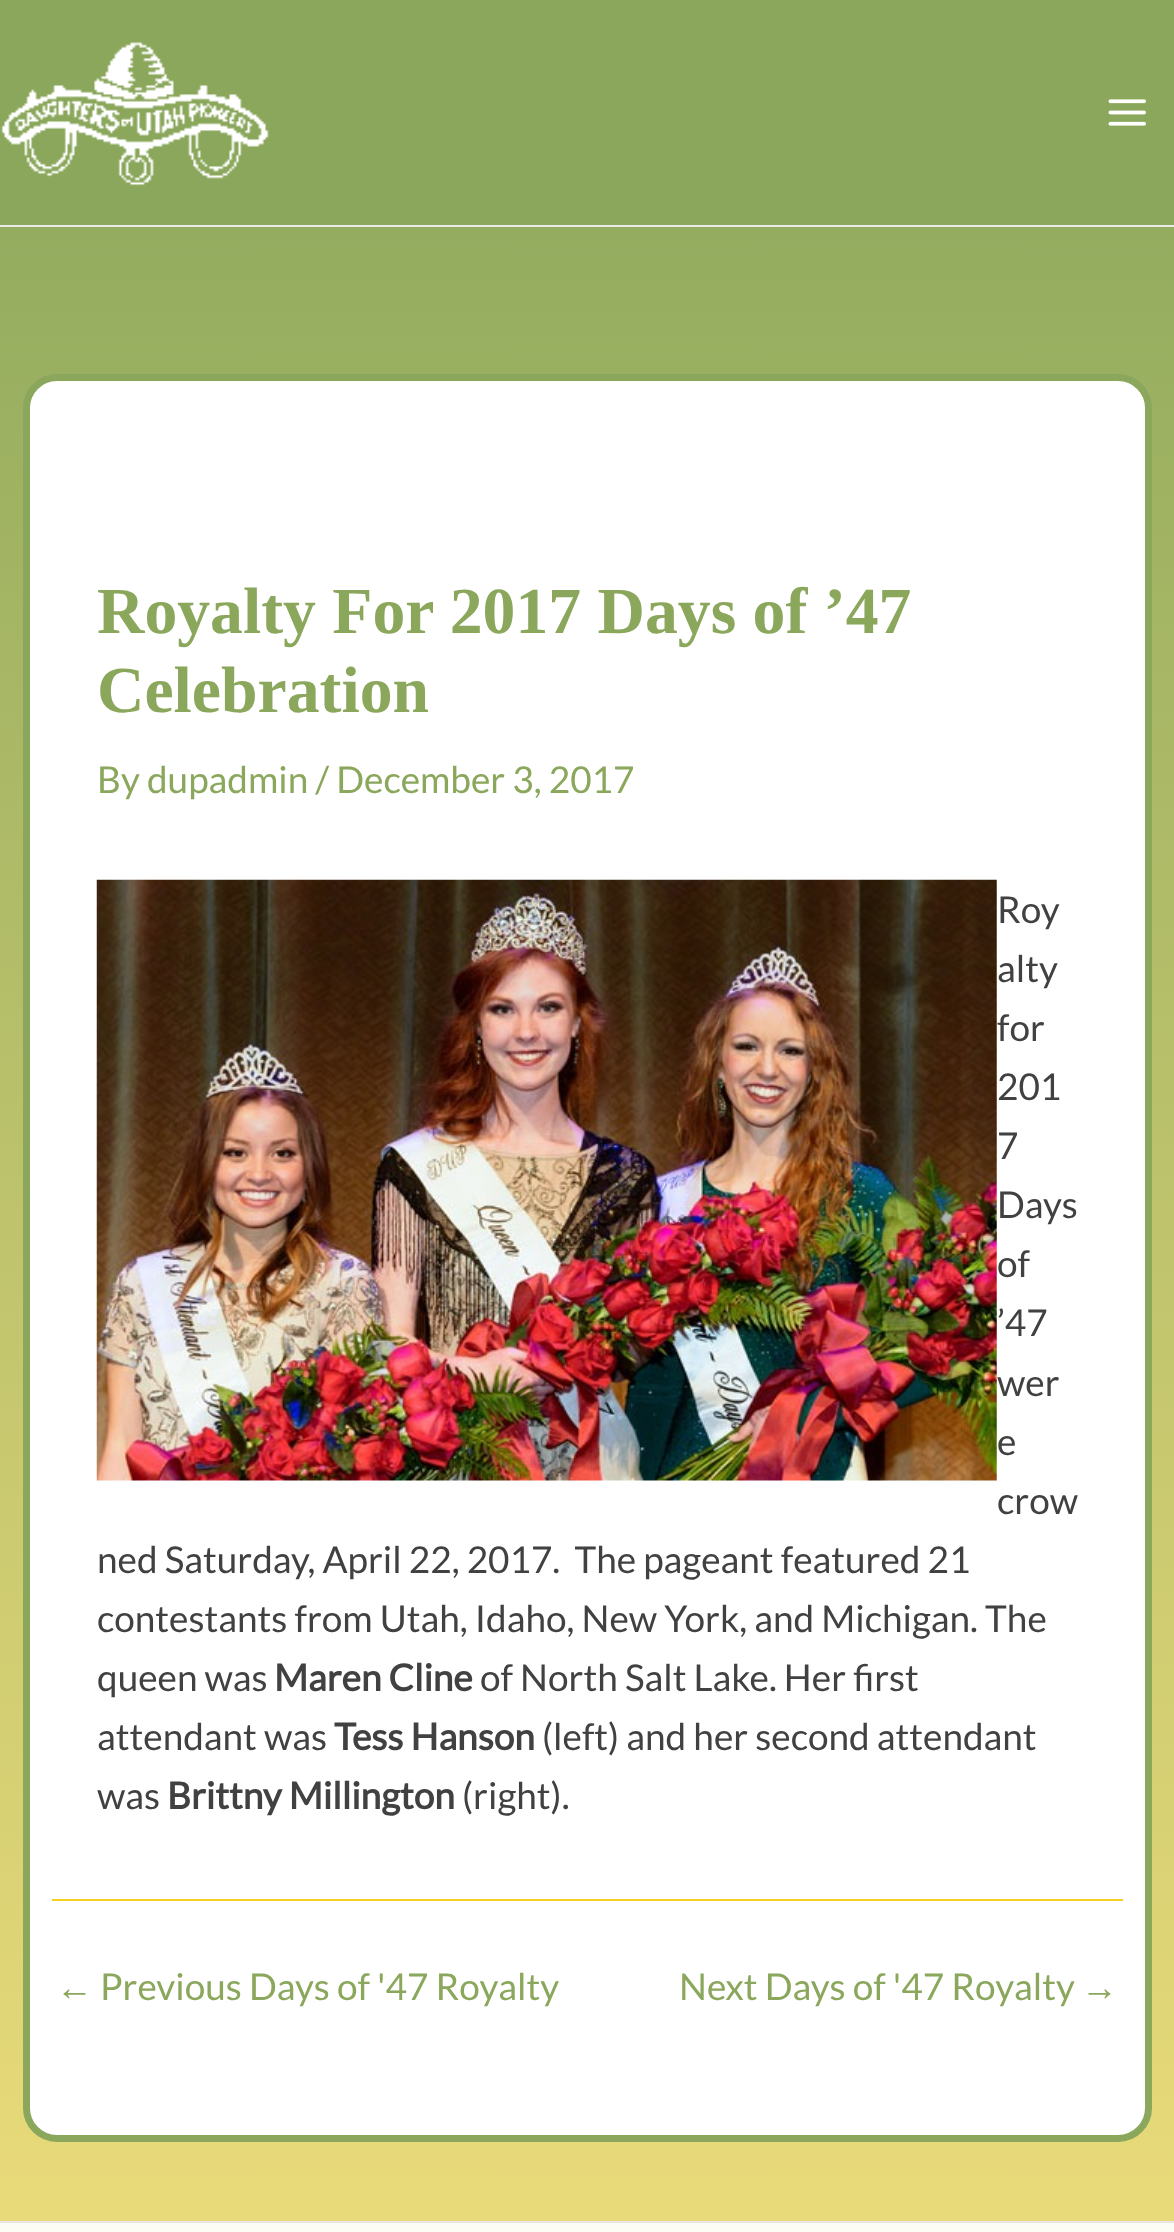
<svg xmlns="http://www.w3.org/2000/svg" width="1174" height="2232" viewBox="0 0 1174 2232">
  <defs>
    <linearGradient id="g1" gradientUnits="userSpaceOnUse" x1="587" y1="0" x2="587" y2="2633"><stop offset="0" stop-color="rgb(138,167,92)"/><stop offset="1" stop-color="rgb(251,228,127)"/></linearGradient>
  </defs>
  <rect width="100%" height="100%" fill="rgb(255,255,255)"/>
  <rect x="0" y="227" width="1174" height="1994" fill="url(#g1)"/>
  <rect x="0" y="0" width="1174" height="225" fill="rgb(138,167,92)"/>
  <rect x="0" y="225" width="1174" height="2" fill="rgb(234,234,234)"/>
  <image x="1" y="42" width="268" height="144" href="pic1.png"/>
  <image x="1108" y="99" width="38" height="27" href="pic2.png"/>
  <rect x="26.5" y="377.5" width="1122" height="1761" rx="30.5" fill="rgb(255,255,255)" stroke="rgb(138,167,92)" stroke-width="7"/>
  <g font-family="Liberation Serif" font-size="65.7" font-weight="bold" fill="rgb(138,167,92)">
    <text>
      <tspan x="97" y="633">Royalty For 2017 Days of ’47</tspan>
      <tspan x="97" y="712">Celebration</tspan>
    </text>
  </g>
  <text x="97" y="793" font-family="Lato" font-size="36.95" fill="rgb(138,167,92)">By dupadmin / December 3, 2017</text>
  <image x="96" y="879" width="901" height="602" href="pic3.png"/>
  <g font-family="Lato" font-size="36.95" fill="rgb(65,65,65)">
    <text>
      <tspan x="997" y="923">Roy</tspan>
      <tspan x="997" y="982">alty</tspan>
      <tspan x="997" y="1041">for</tspan>
      <tspan x="997" y="1100">201</tspan>
      <tspan x="997" y="1159">7</tspan>
      <tspan x="997" y="1218">Days</tspan>
      <tspan x="997" y="1277">of</tspan>
      <tspan x="997" y="1336">’47</tspan>
      <tspan x="997" y="1396">wer</tspan>
      <tspan x="997" y="1455">e</tspan>
      <tspan x="997" y="1514">crow</tspan>
    </text>
    <text xml:space="preserve"><tspan x="97" y="1573">ned Saturday, April 22, 2017.  The pageant featured 21</tspan><tspan x="97" y="1632">contestants from Utah, Idaho, New York, and Michigan. The</tspan><tspan x="97" y="1691">queen was</tspan></text>
  </g>
  <text x="274" y="1691" font-family="Lato" font-size="36.95" font-weight="bold" fill="rgb(65,65,65)">Maren Cline</text>
  <g font-family="Lato" font-size="36.95" fill="rgb(65,65,65)">
    <text x="480" y="1691">of North Salt Lake. Her first</text>
    <text x="97" y="1750">attendant was</text>
  </g>
  <text x="334" y="1750" font-family="Lato" font-size="36.95" font-weight="bold" fill="rgb(65,65,65)">Tess Hanson</text>
  <g font-family="Lato" font-size="36.95" fill="rgb(65,65,65)">
    <text x="542" y="1750">(left) and her second attendant</text>
    <text x="97" y="1809">was</text>
  </g>
  <text x="167" y="1809" font-family="Lato" font-size="36.95" font-weight="bold" fill="rgb(65,65,65)">Brittny Millington</text>
  <text x="462" y="1809" font-family="Lato" font-size="36.95" fill="rgb(65,65,65)">(right).</text>
  <rect x="52" y="1899" width="1071" height="2" fill="rgb(247,207,33)"/>
  <text x="56" y="2000" font-family="Liberation Sans" font-size="36.95" fill="rgb(138,167,92)">←</text>
  <g font-family="Lato" font-size="36.95" fill="rgb(138,167,92)">
    <text x="100" y="2000">Previous Days of '47 Royalty</text>
    <text x="679" y="2000">Next Days of '47 Royalty</text>
  </g>
  <text x="1081" y="2000" font-family="Liberation Sans" font-size="36.95" fill="rgb(138,167,92)">→</text>
  <rect x="0" y="2223" width="1174" height="9" fill="rgb(253,252,244)"/>
  <rect x="0" y="2221" width="1174" height="2" fill="rgb(230,230,230)"/>
</svg>
